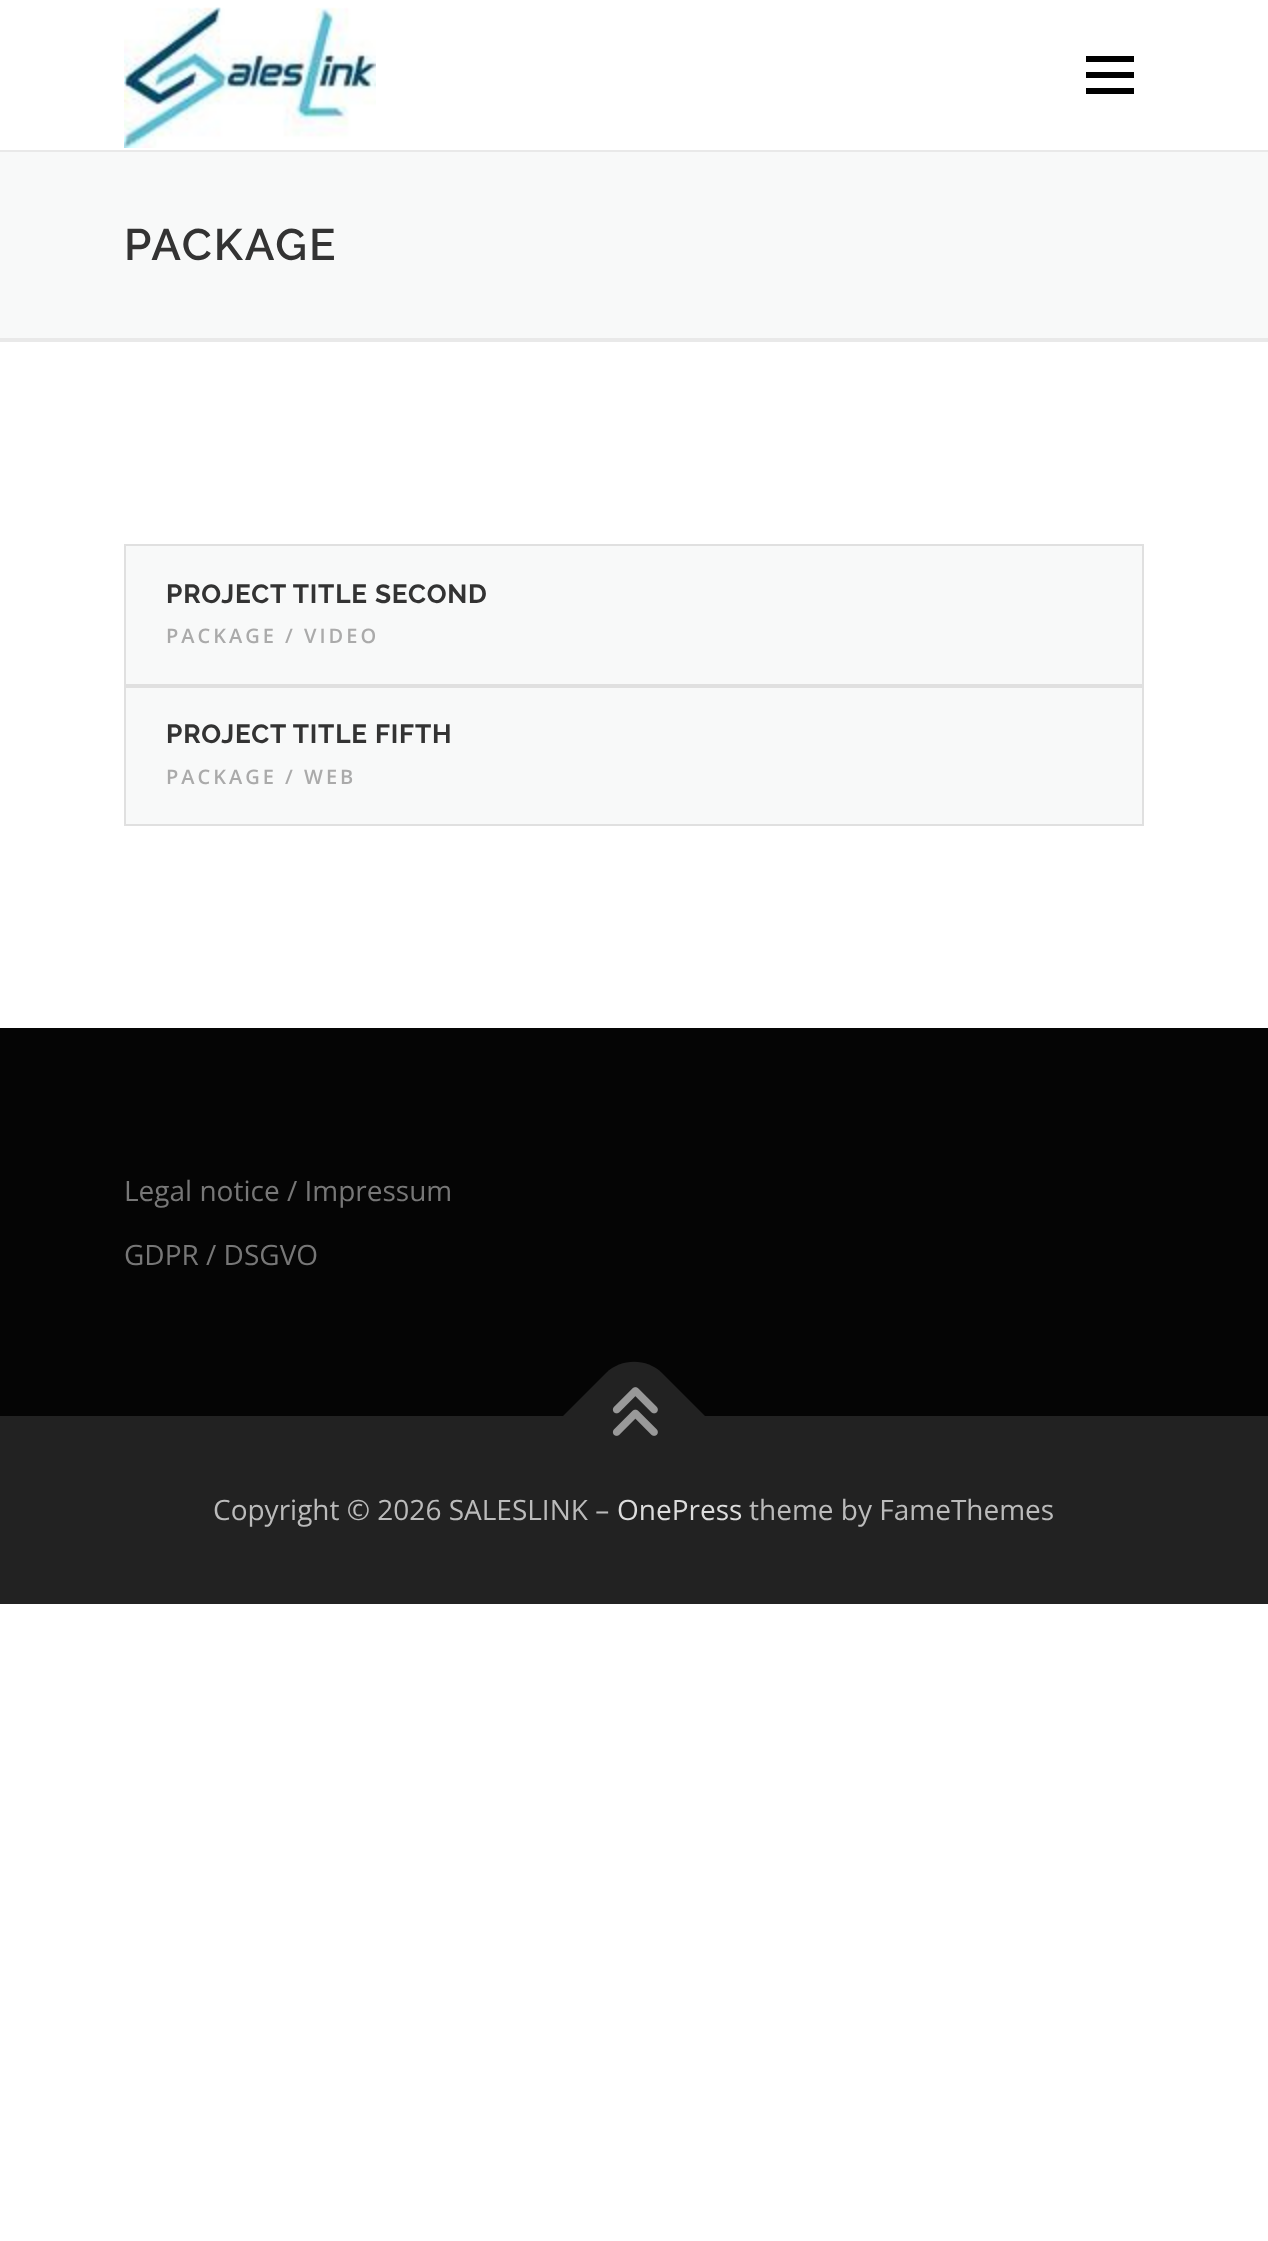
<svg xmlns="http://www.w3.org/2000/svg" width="1268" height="2241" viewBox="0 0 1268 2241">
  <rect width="100%" height="100%" fill="rgb(255,255,255)"/>
  <image x="124" y="7" width="252" height="141" href="pic1.png"/>
  <rect x="1086" y="72" width="48" height="6" fill="rgb(0,0,0)"/>
  <rect x="1086" y="56" width="48" height="6" fill="rgb(0,0,0)"/>
  <rect x="1086" y="88" width="48" height="6" fill="rgb(0,0,0)"/>
  <rect x="0" y="152" width="1268" height="186" fill="rgb(248,249,249)"/>
  <rect x="0" y="150" width="1268" height="2" fill="rgb(233,233,233)"/>
  <text x="124" y="260" font-family="Raleway" font-size="44" font-weight="600" letter-spacing="2" fill="rgb(51,51,51)">PACKAGE</text>
  <rect x="0" y="338" width="1268" height="4" fill="rgb(233,233,233)"/>
  <rect x="124" y="544" width="2" height="282" fill="rgb(224,224,224)"/>
  <rect x="126" y="544" width="1018" height="2" fill="rgb(224,224,224)"/>
  <rect x="1142" y="544" width="2" height="142" fill="rgb(224,224,224)"/>
  <rect x="126" y="684" width="1018" height="4" fill="rgb(224,224,224)"/>
  <rect x="126" y="546" width="1016" height="138" fill="rgb(248,249,249)"/>
  <text x="166" y="603" font-family="Raleway" font-size="26.25" font-weight="bold" letter-spacing="0.8" fill="rgb(51,51,51)">PROJECT TITLE SECOND</text>
  <text x="166" y="643" font-family="Open Sans" font-size="20" font-weight="600" letter-spacing="3" fill="rgb(170,170,170)">PACKAGE / VIDEO</text>
  <rect x="1142" y="686" width="2" height="140" fill="rgb(224,224,224)"/>
  <rect x="126" y="824" width="1018" height="2" fill="rgb(224,224,224)"/>
  <rect x="126" y="688" width="1016" height="136" fill="rgb(248,249,249)"/>
  <text x="166" y="743" font-family="Raleway" font-size="26.25" font-weight="bold" letter-spacing="0.8" fill="rgb(51,51,51)">PROJECT TITLE FIFTH</text>
  <text x="166" y="784" font-family="Open Sans" font-size="20" font-weight="600" letter-spacing="3" fill="rgb(170,170,170)">PACKAGE / WEB</text>
  <rect x="0" y="1028" width="1268" height="388" fill="rgb(5,5,5)"/>
  <g font-family="Open Sans" font-size="28" fill="rgb(119,119,119)">
    <text x="124" y="1201">Legal notice / Impressum</text>
    <text x="124" y="1265">GDPR / DSGVO</text>
  </g>
  <rect x="0" y="1416" width="1268" height="188" fill="rgb(34,34,34)"/>
  <path d="M563 1416L606 1373C621 1358 647 1358 662 1373L705 1416L634 1486Z" fill="rgb(34,34,34)"/>
  <image x="612" y="1387" width="46" height="49" href="pic2.png"/>
  <text x="213" y="1520" font-family="Open Sans" font-size="28" fill="rgb(187,187,187)">Copyright © 2026 SALESLINK –</text>
  <text x="617" y="1520" font-family="Open Sans" font-size="28" fill="rgb(221,221,221)">OnePress</text>
  <text x="749" y="1520" font-family="Open Sans" font-size="28" fill="rgb(187,187,187)">theme by FameThemes</text>
</svg>
